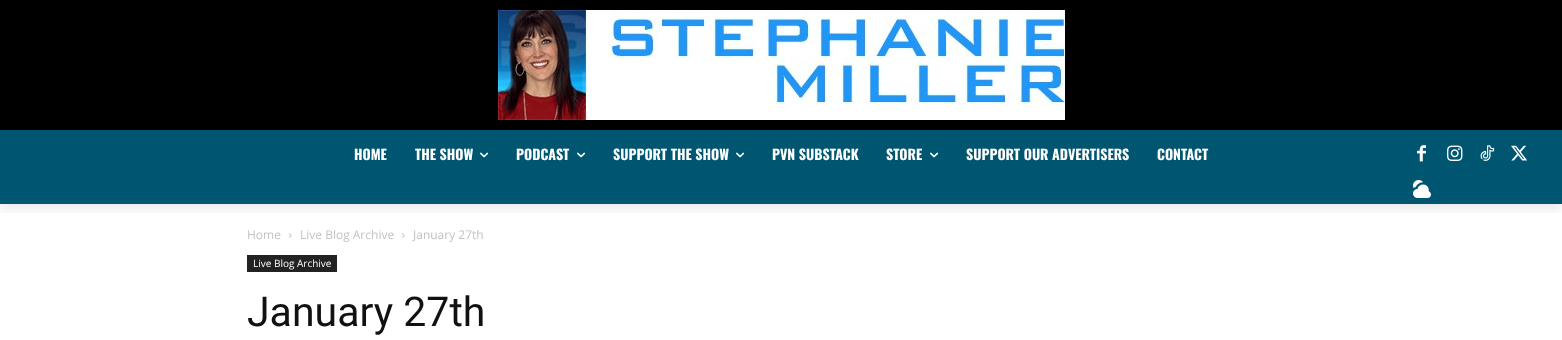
<svg xmlns="http://www.w3.org/2000/svg" width="1562" height="340" viewBox="0 0 1562 340">
  <defs>
    <clipPath id="clip1"><rect x="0" y="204" width="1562" height="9"/></clipPath>
  </defs>
  <rect width="100%" height="100%" fill="rgb(255,255,255)"/>
  <rect x="0" y="0" width="1562" height="130" fill="rgb(0,0,0)"/>
  <image x="498" y="10" width="567" height="110" href="pic1.png"/>
  <rect x="0" y="130" width="1562" height="74" fill="rgb(0,86,113)"/>
  <image x="1417" y="145" width="9" height="17" href="pic3.png"/>
  <image x="1447" y="145" width="16" height="16" href="pic4.png"/>
  <image x="1480" y="145" width="15" height="16" href="pic5.png"/>
  <image x="1511" y="145" width="16" height="16" href="pic6.png"/>
  <image x="1413" y="180" width="18" height="18" href="pic7.png"/>
  <g clip-path="url(#clip1)">
    <rect x="0" y="136" width="1562" height="74" fill="rgba(0,0,0,0.08)" filter="blur(4px)"/>
  </g>
  <g font-family="Oswald" font-size="14" font-weight="bold" fill="rgb(255,255,255)">
    <text x="354" y="160">HOME</text>
    <text x="415" y="160">THE SHOW</text>
  </g>
  <image x="480" y="152" width="9" height="6" href="pic2.png"/>
  <text x="516" y="160" font-family="Oswald" font-size="14" font-weight="bold" fill="rgb(255,255,255)">PODCAST</text>
  <image x="577" y="152" width="9" height="6" href="pic2.png"/>
  <text x="613" y="160" font-family="Oswald" font-size="14" font-weight="bold" fill="rgb(255,255,255)">SUPPORT THE SHOW</text>
  <image x="736" y="152" width="9" height="6" href="pic2.png"/>
  <g font-family="Oswald" font-size="14" font-weight="bold" fill="rgb(255,255,255)">
    <text x="772" y="160">PVN SUBSTACK</text>
    <text x="886" y="160">STORE</text>
  </g>
  <image x="930" y="152" width="9" height="6" href="pic2.png"/>
  <g font-family="Oswald" font-size="14" font-weight="bold" fill="rgb(255,255,255)">
    <text x="966" y="160">SUPPORT OUR ADVERTISERS</text>
    <text x="1157" y="160">CONTACT</text>
  </g>
  <text x="247" y="239" font-family="Open Sans" font-size="12" fill="rgb(195,195,195)">Home</text>
  <image x="289" y="233" width="3" height="5" href="pic8.png"/>
  <text x="300" y="239" font-family="Open Sans" font-size="12" fill="rgb(195,195,195)">Live Blog Archive</text>
  <image x="402" y="233" width="3" height="5" href="pic8.png"/>
  <text x="413" y="239" font-family="Open Sans" font-size="12" fill="rgb(195,195,195)">January 27th</text>
  <rect x="247" y="255" width="90" height="17" fill="rgb(34,34,34)"/>
  <text x="253" y="267" font-family="Open Sans" font-size="10" fill="rgb(255,255,255)">Live Blog Archive</text>
  <text x="247" y="326" font-family="Roboto" font-size="41" fill="rgb(17,17,17)">January 27th</text>
</svg>
